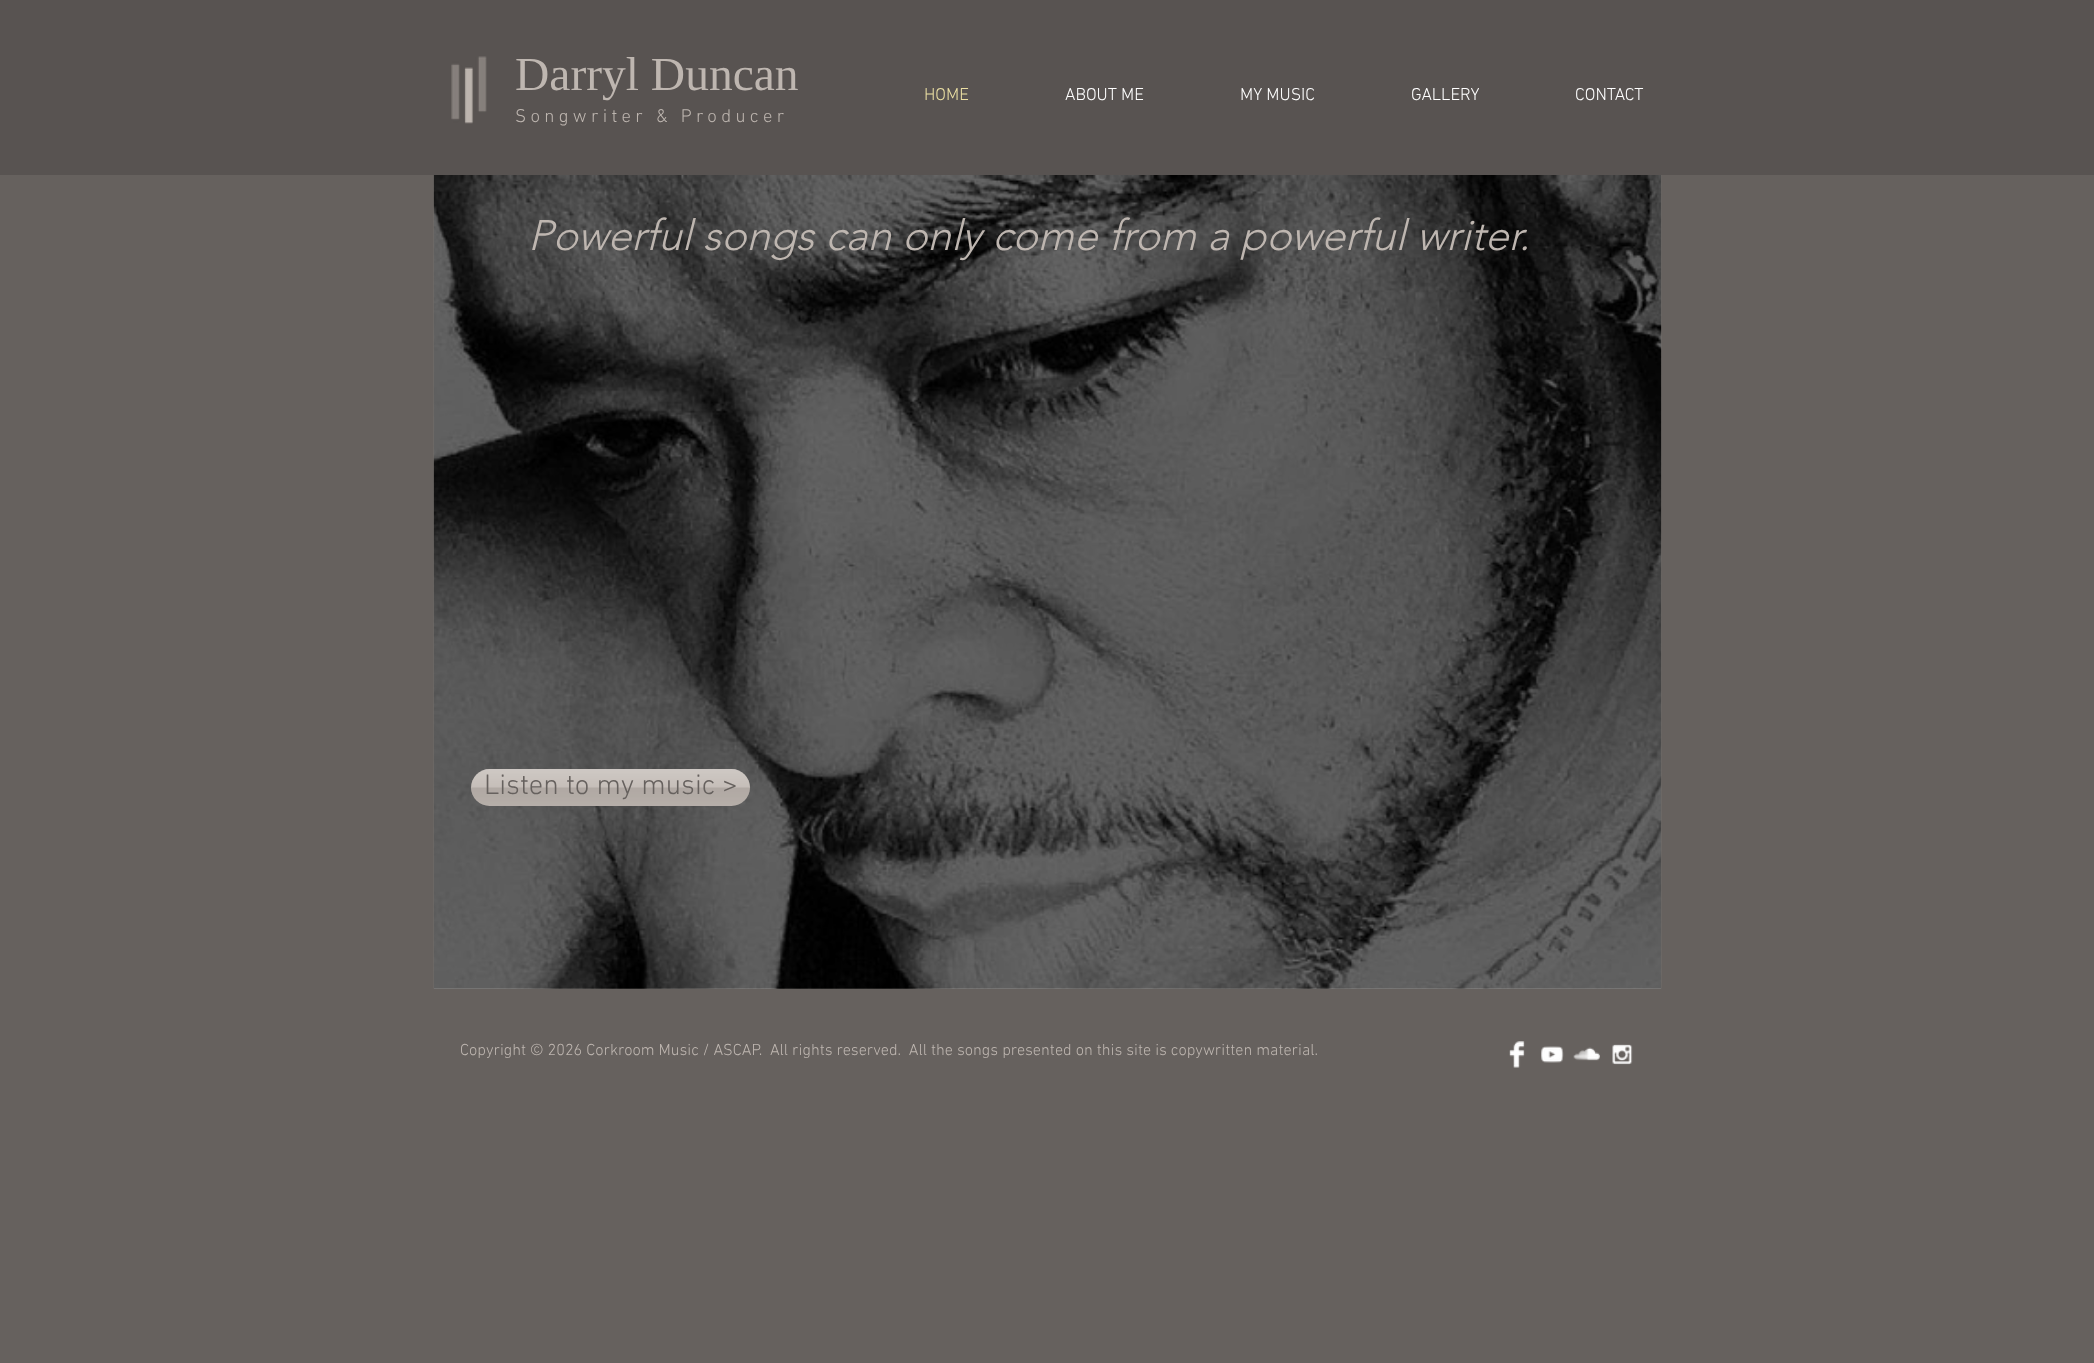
<svg xmlns="http://www.w3.org/2000/svg" width="2094" height="1363" viewBox="0 0 2094 1363">
  <rect width="100%" height="100%" fill="rgb(102,97,94)"/>
  <rect x="0" y="0" width="2094" height="175" fill="rgb(88,83,81)"/>
  <image x="451" y="56" width="36" height="68" href="pic1.png"/>
  <text x="515" y="90" font-family="Liberation Serif" font-size="47.5" fill="rgb(190,182,176)">Darryl Duncan</text>
  <text x="515" y="122" font-family="'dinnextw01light'" font-size="18.75" font-weight="300" letter-spacing="4.3" fill="rgb(190,182,176)">Songwriter &amp; Producer</text>
  <text x="924" y="100" font-family="'dinnextw01light'" font-size="17.5" font-weight="300" fill="rgb(235,223,163)">HOME</text>
  <g font-family="'dinnextw01light'" font-size="17.5" font-weight="300" fill="rgb(255,255,255)">
    <text x="1065" y="100">ABOUT ME</text>
    <text x="1240" y="100">MY MUSIC</text>
    <text x="1411" y="100">GALLERY</text>
    <text x="1575" y="100">CONTACT</text>
  </g>
  <image x="433" y="175" width="1229" height="814" href="pic2.png"/>
  <text x="528" y="250" font-family="'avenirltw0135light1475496'" font-size="42.5" font-weight="300" font-style="italic" fill="rgb(190,182,176)">Powerful songs can only come from a powerful writer.</text>
  <rect x="471" y="769" width="279" height="37" rx="18.5" fill="rgb(190,182,176)"/>
  <image x="471" y="769" width="279" height="37" href="pic3.png"/>
  <text x="484" y="794" font-family="'dinnextw01light'" font-size="28.75" font-weight="300" fill="rgb(102,97,94)">Listen to my music &gt;</text>
  <text x="460" y="1055" font-family="'dinnextw01light'" font-size="16.25" font-weight="300" fill="rgb(190,182,176)" xml:space="preserve">Copyright © 2026 Corkroom Music / ASCAP.  All rights reserved.  All the songs presented on this site is copywritten material.</text>
  <image x="1509" y="1041" width="16" height="27" href="pic4.png"/>
  <image x="1541" y="1046" width="23" height="17" href="pic5.png"/>
  <image x="1573" y="1047" width="27" height="14" href="pic6.png"/>
  <image x="1612" y="1044" width="21" height="21" href="pic7.png"/>
</svg>
